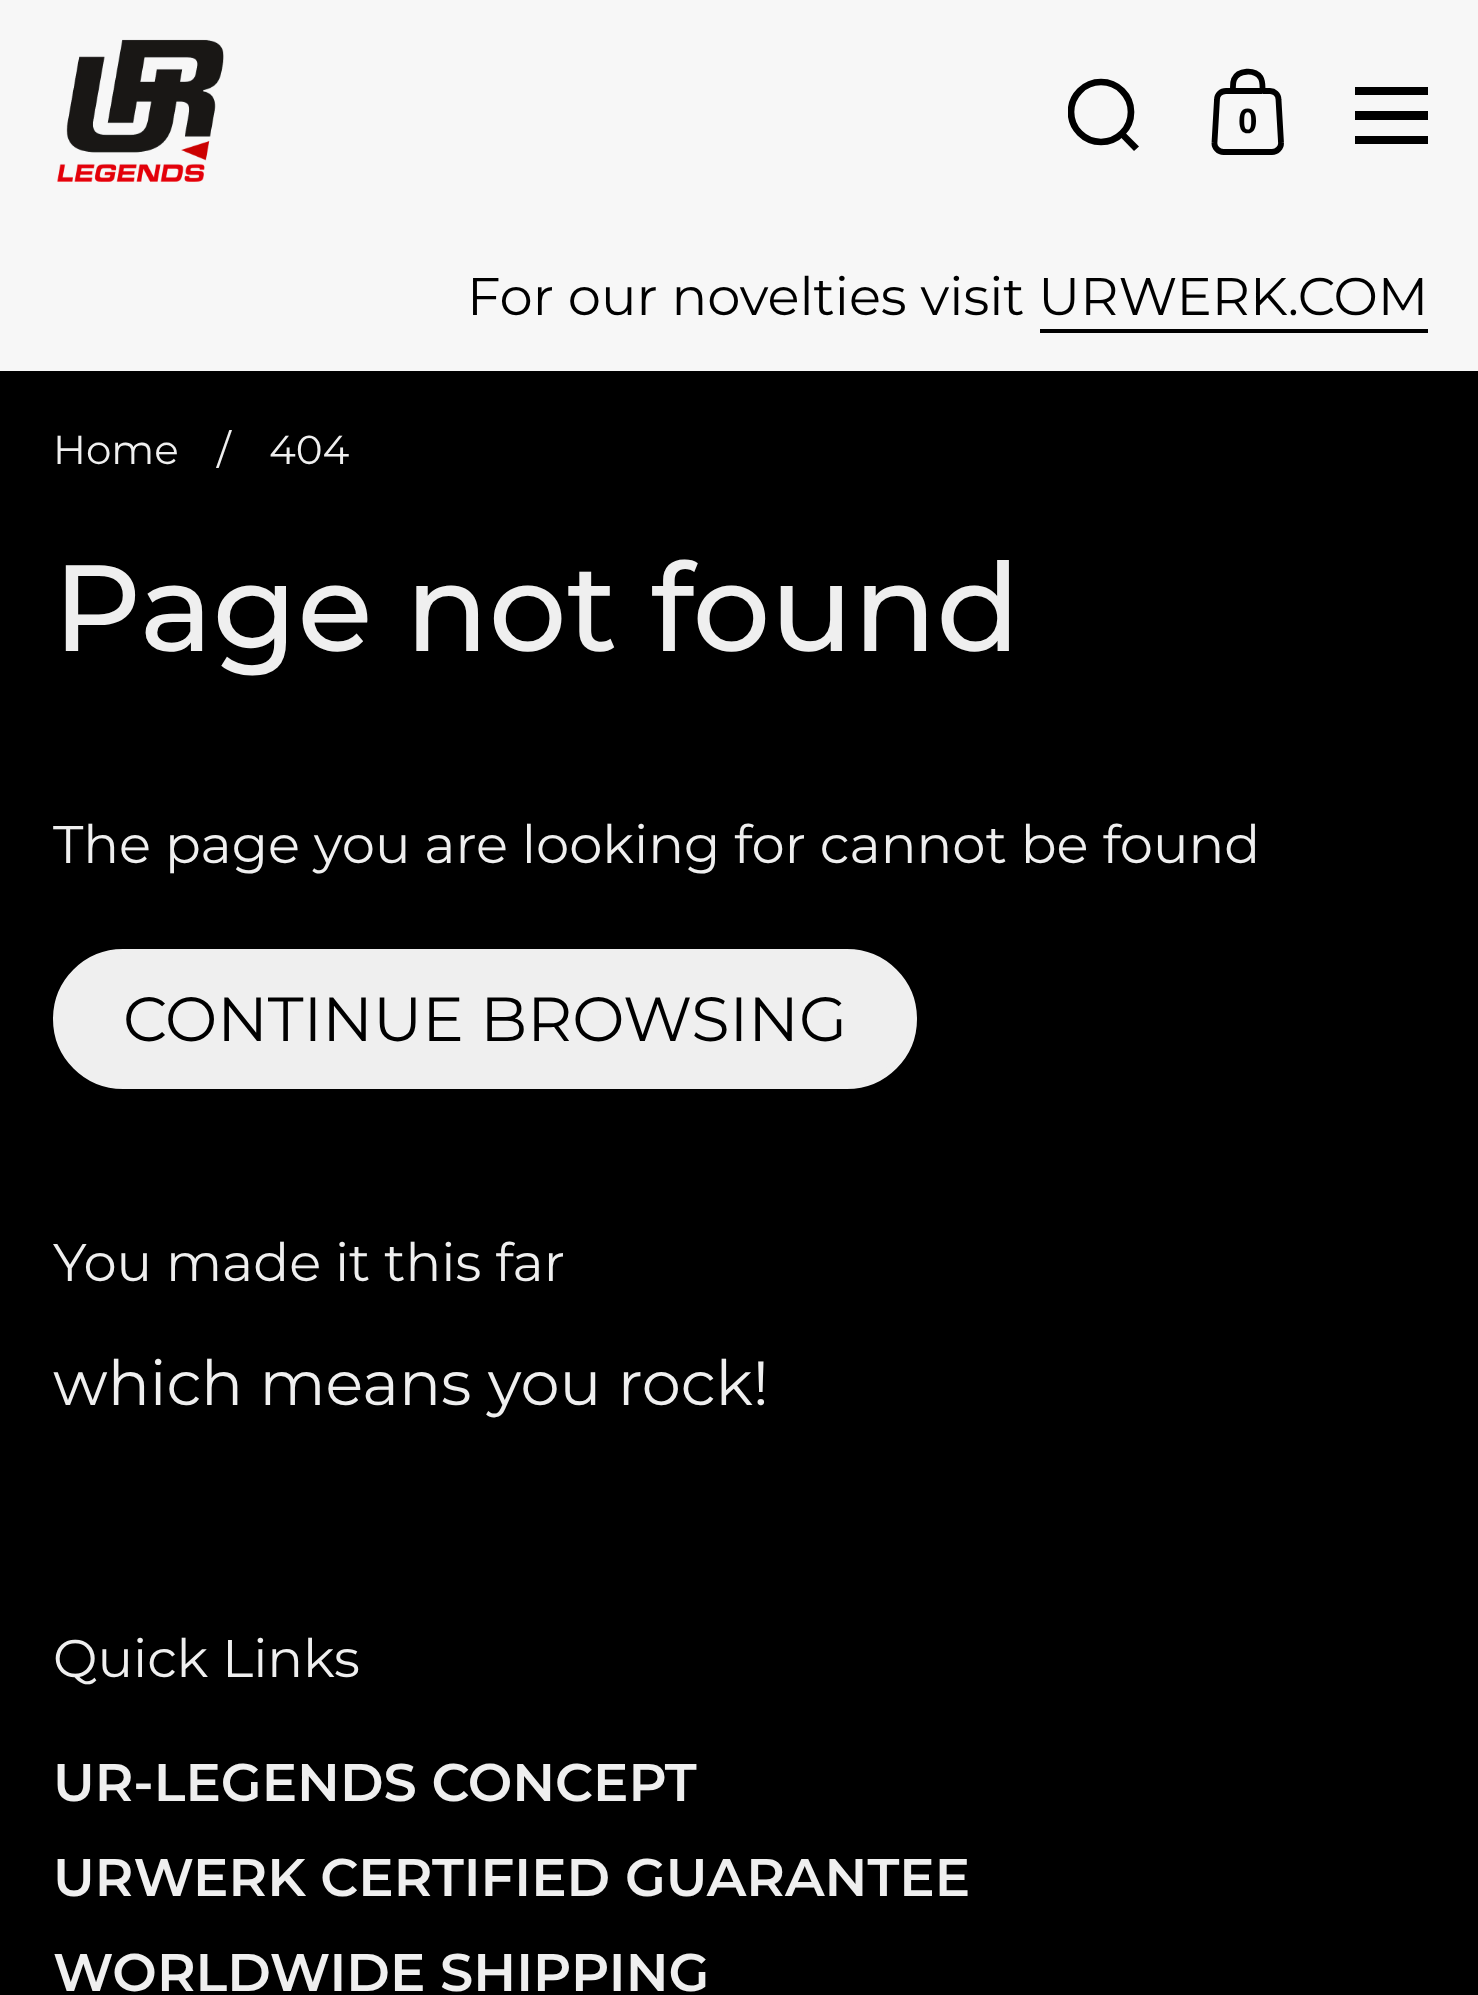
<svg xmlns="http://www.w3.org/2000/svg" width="1478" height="1995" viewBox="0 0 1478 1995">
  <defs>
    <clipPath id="clip1"><rect x="1068" y="70" width="73" height="91"/></clipPath>
  </defs>
  <rect width="100%" height="100%" fill="rgb(0,0,0)"/>
  <rect x="0" y="0" width="1478" height="371" fill="rgb(247,247,247)"/>
  <image x="57" y="39" width="167" height="143" href="pic1.png"/>
  <g clip-path="url(#clip1)">
    <circle cx="1101" cy="112" r="30" fill="none" stroke="rgb(0,0,0)" stroke-width="6.7"/>
  </g>
  <path d="M1118.5 135L1123 130.5L1139 146.5L1134 151Z" fill="rgb(0,0,0)"/>
  <path d="M1233 91H1226C1221 91 1217 94.5 1217 99.5L1214.5 142.5C1214 147.5 1218.5 152 1223.5 152H1272C1277 152 1281.5 147.5 1281 142.5L1278.5 99.5C1278.5 94.5 1274.5 91 1269.5 91H1262.5M1233 91H1262.5M1233 91C1233 87 1232.5 83 1234 79.5C1238 70 1254.5 69 1260.5 77.5C1263 81.5 1262.5 86 1262.5 91" fill="none" stroke="rgb(0,0,0)" stroke-width="5.8"/>
  <text x="1238" y="133" font-family="Liberation Sans" font-size="35" font-weight="bold" fill="rgb(0,0,0)">0</text>
  <rect x="1355" y="87" width="73" height="8" fill="rgb(0,0,0)"/>
  <rect x="1355" y="111" width="73" height="9" fill="rgb(0,0,0)"/>
  <rect x="1355" y="136" width="73" height="8" fill="rgb(0,0,0)"/>
  <text x="467" y="315" font-family="Montserrat" font-size="52.9" fill="rgb(0,0,0)">For our novelties visit URWERK.COM</text>
  <rect x="1040" y="329" width="388" height="4" fill="rgb(0,0,0)"/>
  <g font-family="Montserrat" font-size="40.5" fill="rgb(239,239,239)">
    <text x="53" y="464">Home</text>
    <text x="217" y="464">/</text>
    <text x="269" y="464">404</text>
  </g>
  <text x="53" y="651" font-family="Montserrat" font-size="122.5" font-weight="500" fill="rgb(239,239,239)">Page not found</text>
  <text x="53" y="863" font-family="Montserrat" font-size="52.9" fill="rgb(239,239,239)">The page you are looking for cannot be found</text>
  <rect x="56.5" y="952.5" width="857" height="133" rx="66.5" fill="rgb(239,239,239)" stroke="rgb(239,239,239)" stroke-width="7"/>
  <text x="123" y="1041" font-family="Montserrat" font-size="62.25" fill="rgb(0,0,0)">CONTINUE BROWSING</text>
  <text x="53" y="1281" font-family="Montserrat" font-size="52.9" fill="rgb(239,239,239)">You made it this far</text>
  <text x="53" y="1405" font-family="Montserrat" font-size="62.25" fill="rgb(239,239,239)">which means you rock!</text>
  <text x="53" y="1677" font-family="Montserrat" font-size="52.9" fill="rgb(239,239,239)">Quick Links</text>
  <g font-family="Montserrat" font-size="52.9" font-weight="600" fill="rgb(239,239,239)">
    <text>
      <tspan x="53" y="1801">UR-LEGENDS CONCEPT</tspan>
      <tspan x="53" y="1896">URWERK CERTIFIED GUARANTEE</tspan>
      <tspan x="53" y="1991">WORLDWIDE SHIPPING</tspan>
    </text>
  </g>
</svg>
